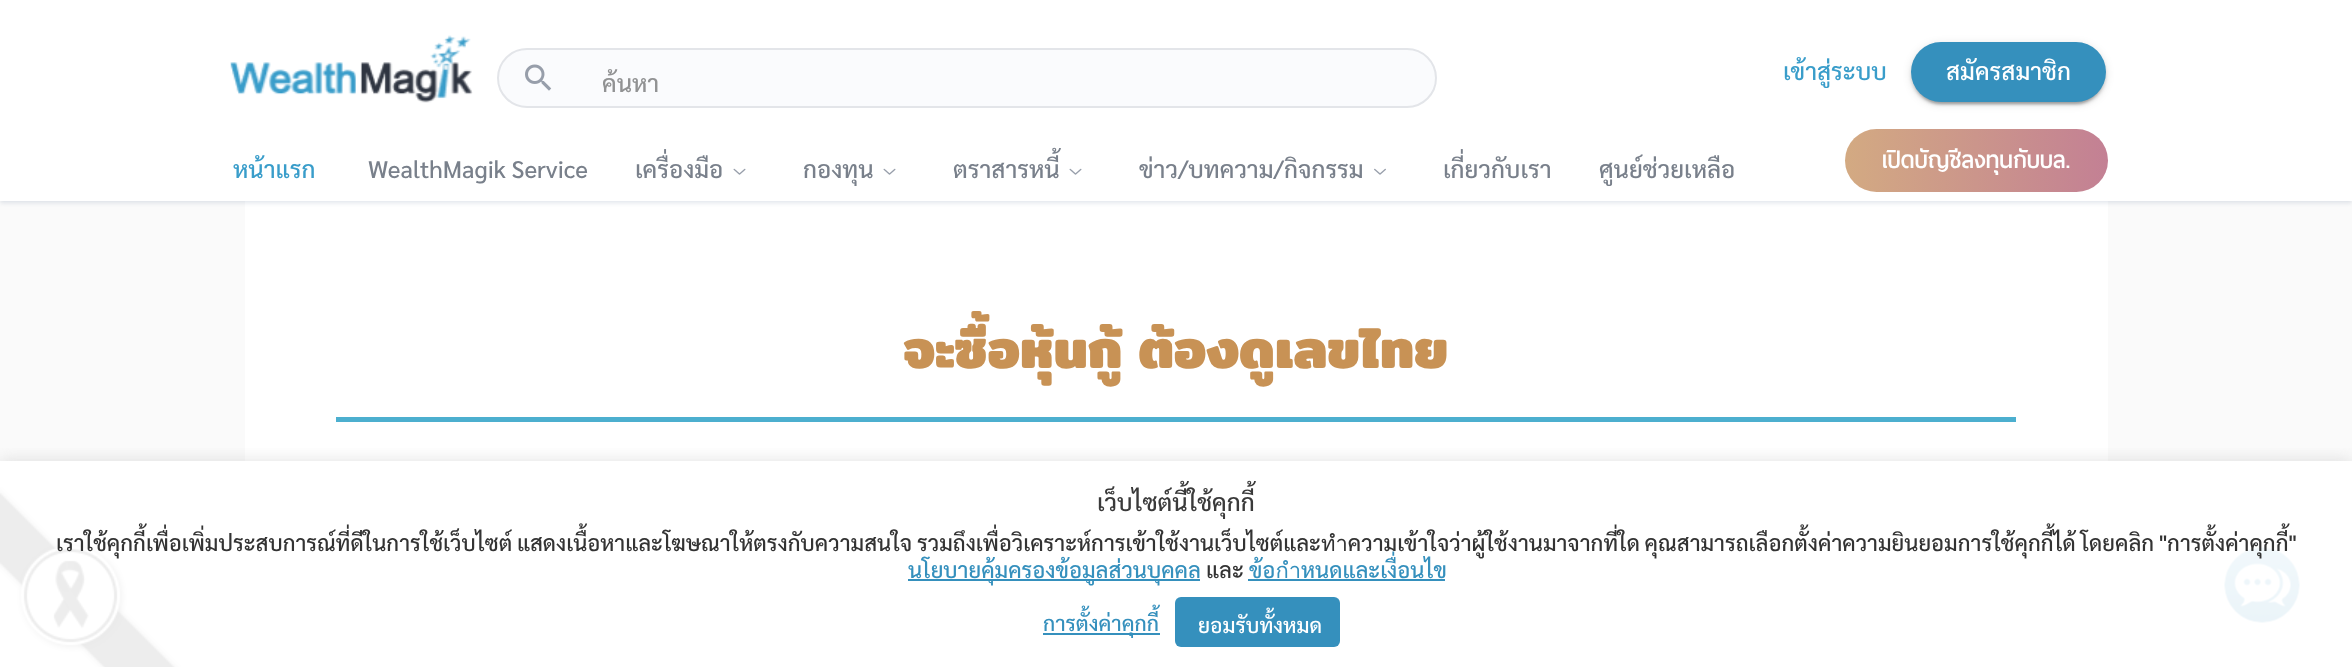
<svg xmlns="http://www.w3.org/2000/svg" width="2352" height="667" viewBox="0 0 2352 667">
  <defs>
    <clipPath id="clip1"><rect x="603" y="66" width="810" height="32"/></clipPath>
    <linearGradient id="g1" gradientUnits="userSpaceOnUse" x1="1845" y1="161" x2="2108" y2="161"><stop offset="0" stop-color="rgb(211,170,130)"/><stop offset="1" stop-color="rgb(195,128,148)"/></linearGradient>
    <clipPath id="clip2"><rect x="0" y="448" width="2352" height="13"/></clipPath>
  </defs>
  <rect width="100%" height="100%" fill="rgb(250,250,250)"/>
  <rect x="245" y="201" width="1863" height="466" fill="rgb(255,255,255)"/>
  <rect x="0" y="2" width="2352" height="201" fill="rgba(20,53,101,0.12)" filter="blur(2px)"/>
  <rect x="0" y="0" width="2352" height="201" fill="rgb(255,255,255)"/>
  <image x="230" y="35" width="243" height="68" href="pic1.png"/>
  <rect x="498" y="49" width="938" height="58" rx="29" fill="rgb(250,251,253)" stroke="rgb(227,229,233)" stroke-width="2"/>
  <image x="525" y="64" width="27" height="27" href="pic2.png"/>
  <g clip-path="url(#clip1)">
    <text x="602" y="92" font-family="Sarabun" font-size="24" font-weight="500" fill="rgb(145,146,147)">ค้นหา</text>
  </g>
  <text x="1783" y="80" font-family="Sarabun" font-size="24" font-weight="500" fill="rgb(57,157,202)">เข้าสู่ระบบ</text>
  <rect x="1911" y="44" width="195" height="60" rx="30" fill="rgba(0,0,0,0.12)" filter="blur(4px)"/>
  <rect x="1911" y="45" width="195" height="60" rx="30" fill="rgba(0,0,0,0.14)" filter="blur(1.5px)"/>
  <rect x="1914" y="50" width="189" height="54" rx="27" fill="rgba(0,0,0,0.2)" filter="blur(1px)"/>
  <rect x="1911" y="42" width="195" height="60" rx="30" fill="rgb(53,144,189)"/>
  <text x="1946" y="80" font-family="Sarabun" font-size="24" font-weight="500" fill="rgb(255,255,255)">สมัครสมาชิก</text>
  <text x="233" y="178" font-family="Sarabun" font-size="24" font-weight="500" fill="rgb(57,157,202)">หน้าแรก</text>
  <text x="368" y="178" font-family="'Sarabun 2'" font-size="24" font-weight="500" fill="rgb(121,128,139)">WealthMagik Service</text>
  <text x="635" y="178" font-family="Sarabun" font-size="24" font-weight="500" fill="rgb(121,128,139)">เครื่องมือ</text>
  <image x="733" y="168" width="13" height="7" href="pic3.png"/>
  <text x="803" y="178" font-family="Sarabun" font-size="24" font-weight="500" fill="rgb(121,128,139)">กองทุน</text>
  <image x="883" y="168" width="13" height="7" href="pic3.png"/>
  <text x="953" y="178" font-family="Sarabun" font-size="24" font-weight="500" fill="rgb(121,128,139)">ตราสารหนี้</text>
  <image x="1069" y="168" width="13" height="7" href="pic3.png"/>
  <text x="1139" y="178" font-family="Sarabun" font-size="24" font-weight="500" fill="rgb(121,128,139)">ข่าว/บทความ/กิจกรรม</text>
  <image x="1374" y="168" width="12" height="7" href="pic4.png"/>
  <g font-family="Sarabun" font-size="24" font-weight="500" fill="rgb(121,128,139)">
    <text x="1443" y="178">เกี่ยวกับเรา</text>
    <text x="1599" y="178">ศูนย์ช่วยเหลือ</text>
  </g>
  <rect x="1845" y="129" width="263" height="63" rx="31.5" fill="url(#g1)"/>
  <text x="1882" y="168" font-family="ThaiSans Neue" font-size="30" font-weight="bold" fill="rgb(255,255,255)">เปิดบัญชีลงทุนกับบล.</text>
  <text x="903" y="368" font-family="Mitr" font-size="54" font-weight="bold" fill="rgb(200,146,85)">จะซื้อหุ้นกู้ ต้องดูเลขไทย</text>
  <rect x="336" y="417" width="1680" height="5" fill="rgb(76,175,207)"/>
  <image x="2224" y="547" width="76" height="76" href="pic5.png"/>
  <image x="0" y="487" width="181" height="180" href="pic6.png"/>
  <g clip-path="url(#clip2)">
    <rect x="0" y="459" width="2352" height="207" fill="rgba(172,171,171,0.3)" filter="blur(7.5px)"/>
  </g>
  <rect x="0" y="461" width="2352" height="206" fill="rgba(255,255,255,0.9)"/>
  <text x="1097" y="511" font-family="Sarabun" font-size="24" font-weight="500" fill="rgb(58,58,58)">เว็บไซต์นี้ใช้คุกกี้</text>
  <text x="56" y="551" word-spacing="-0.5" font-family="Sarabun" font-size="22" font-weight="500" fill="rgb(51,51,51)">เราใช้คุกกี้เพื่อเพิ่มประสบการณ์ที่ดีในการใช้เว็บไซต์ แสดงเนื้อหาและโฆษณาให้ตรงกับความสนใจ รวมถึงเพื่อวิเคราะห์การเข้าใช้งานเว็บไซต์และทำความเข้าใจว่าผู้ใช้งานมาจากที่ใด คุณสามารถเลือกตั้งค่าความยินยอมการใช้คุกกี้ได้ โดยคลิก "การตั้งค่าคุกกี้"</text>
  <rect x="908" y="579" width="292" height="2" fill="rgb(53,144,189)"/>
  <text x="908" y="578" font-family="Sarabun" font-size="22" font-weight="500" fill="rgb(53,144,189)">นโยบายคุ้มครองข้อมูลส่วนบุคคล</text>
  <text x="1206" y="578" font-family="Sarabun" font-size="22" font-weight="500" fill="rgb(51,51,51)">และ</text>
  <text x="1249" y="578" font-family="Sarabun" font-size="22" font-weight="500" fill="rgb(53,144,189)">ข้อกำหนดและเงื่อนไข</text>
  <rect x="1248" y="579" width="197" height="2" fill="rgb(53,144,189)"/>
  <rect x="1043" y="633" width="117" height="2" fill="rgb(53,144,189)"/>
  <text x="1043" y="631" font-family="Sarabun" font-size="21" font-weight="500" fill="rgb(53,144,189)">การตั้งค่าคุกกี้</text>
  <rect x="1175" y="597" width="165" height="50" rx="6" fill="rgb(53,144,189)"/>
  <text x="1198" y="633" font-family="Sarabun" font-size="21" font-weight="500" fill="rgb(255,255,255)">ยอมรับทั้งหมด</text>
</svg>
